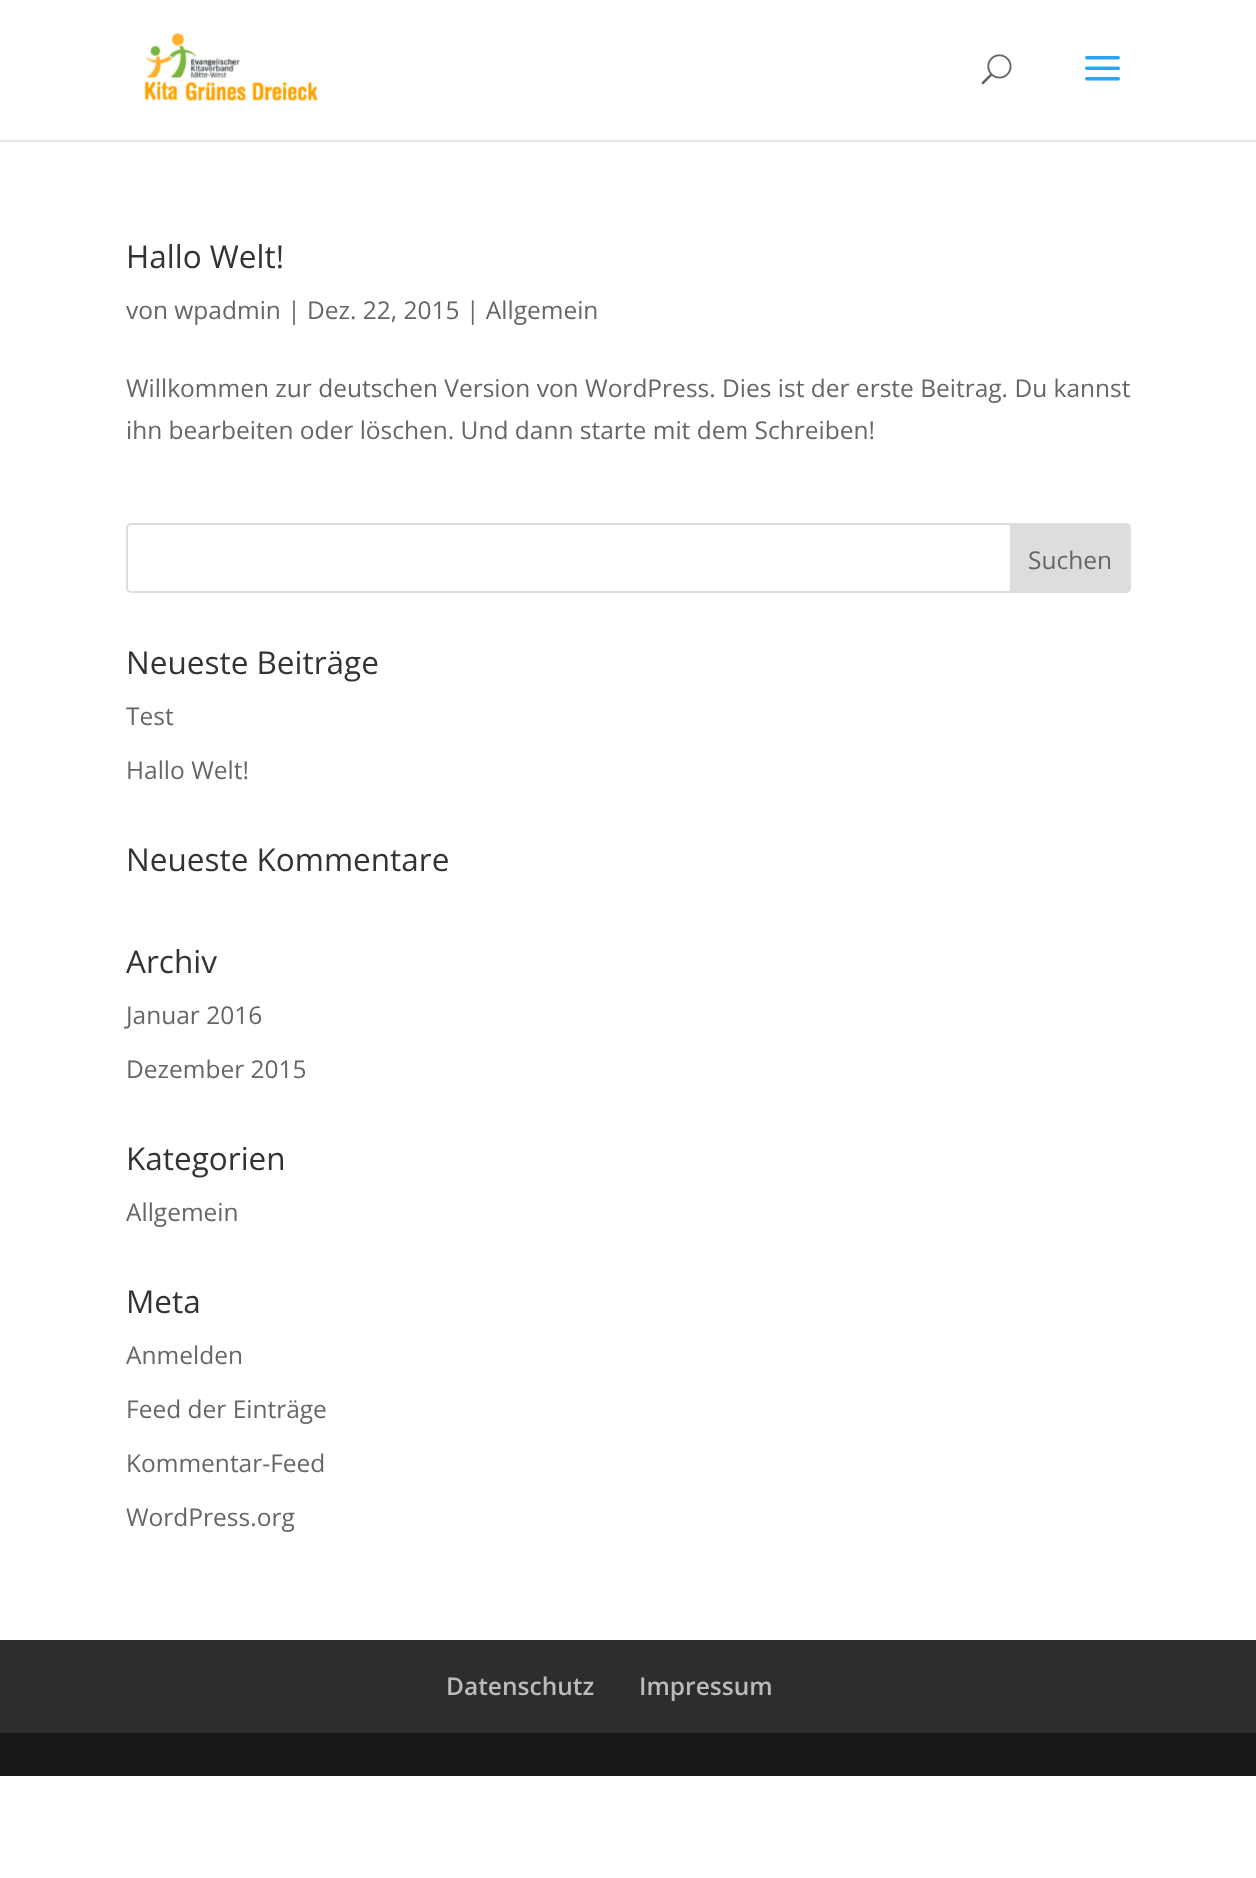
<svg xmlns="http://www.w3.org/2000/svg" width="1256" height="1878" viewBox="0 0 1256 1878">
  <rect width="100%" height="100%" fill="rgb(255,255,255)"/>
  <path d="M0 140V142H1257V2H1256V140Z" fill="rgb(230,230,230)"/>
  <image x="144" y="33" width="174" height="68" href="pic1.png"/>
  <image x="981" y="54" width="31" height="31" href="pic2.png"/>
  <image x="1085" y="56" width="35" height="25" href="pic3.png"/>
  <text x="126" y="268" font-family="Open Sans" font-size="31.5" fill="rgb(51,51,51)">Hallo Welt!</text>
  <g font-family="Open Sans" font-size="24.5" fill="rgb(102,102,102)">
    <text x="126" y="319">von wpadmin | Dez. 22, 2015 | Allgemein</text>
    <text>
      <tspan x="126" y="397">Willkommen zur deutschen Version von WordPress. Dies ist der erste Beitrag. Du kannst</tspan>
      <tspan x="126" y="439">ihn bearbeiten oder löschen. Und dann starte mit dem Schreiben!</tspan>
    </text>
  </g>
  <rect x="127" y="524" width="1003" height="68" rx="4" fill="none" stroke="rgb(221,221,221)" stroke-width="2"/>
  <path d="M1011 524H1126C1128 524 1130 526 1130 528V588C1130 590 1128 592 1126 592H1011Z" fill="rgb(221,221,221)" stroke="rgb(221,221,221)" stroke-width="2"/>
  <text x="1028" y="569" font-family="Open Sans" font-size="24.5" fill="rgb(102,102,102)">Suchen</text>
  <text x="126" y="674" font-family="Open Sans" font-size="31.5" fill="rgb(51,51,51)">Neueste Beiträge</text>
  <g font-family="Open Sans" font-size="24.5" fill="rgb(102,102,102)">
    <text x="126" y="725">Test</text>
    <text x="126" y="779">Hallo Welt!</text>
  </g>
  <g font-family="Open Sans" font-size="31.5" fill="rgb(51,51,51)">
    <text x="126" y="871">Neueste Kommentare</text>
    <text x="126" y="973">Archiv</text>
  </g>
  <g font-family="Open Sans" font-size="24.5" fill="rgb(102,102,102)">
    <text x="126" y="1024">Januar 2016</text>
    <text x="126" y="1078">Dezember 2015</text>
  </g>
  <text x="126" y="1170" font-family="Open Sans" font-size="31.5" fill="rgb(51,51,51)">Kategorien</text>
  <text x="126" y="1221" font-family="Open Sans" font-size="24.5" fill="rgb(102,102,102)">Allgemein</text>
  <text x="126" y="1313" font-family="Open Sans" font-size="31.5" fill="rgb(51,51,51)">Meta</text>
  <g font-family="Open Sans" font-size="24.5" fill="rgb(102,102,102)">
    <text x="126" y="1364">Anmelden</text>
    <text x="126" y="1418">Feed der Einträge</text>
    <text x="126" y="1472">Kommentar-Feed</text>
    <text x="126" y="1526">WordPress.org</text>
  </g>
  <rect x="0" y="1640" width="1256" height="93" fill="rgb(45,45,45)"/>
  <g font-family="Open Sans" font-size="24.5" font-weight="600" fill="rgb(187,187,187)">
    <text x="446" y="1695">Datenschutz</text>
    <text x="639" y="1695">Impressum</text>
  </g>
  <rect x="0" y="1733" width="1256" height="43" fill="rgb(23,23,23)"/>
</svg>
